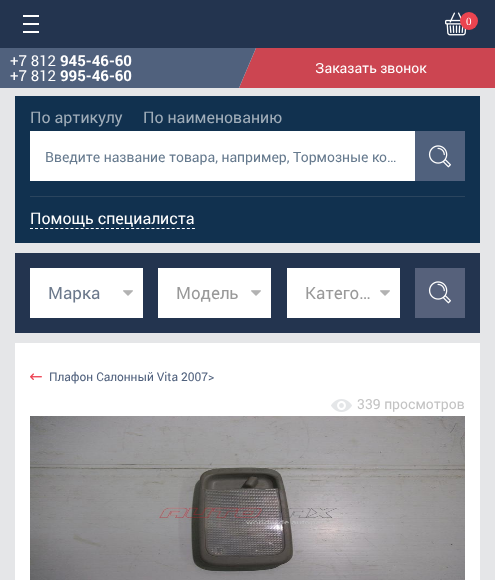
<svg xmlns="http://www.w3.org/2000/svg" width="495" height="580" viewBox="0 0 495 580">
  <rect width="100%" height="100%" fill="rgb(255,255,255)"/>
  <rect x="0" y="0" width="495" height="48" fill="rgb(35,52,79)"/>
  <rect x="23" y="15" width="16" height="2" fill="rgb(255,255,255)"/>
  <rect x="23" y="23" width="16" height="2" fill="rgb(255,255,255)"/>
  <rect x="23" y="31" width="16" height="2" fill="rgb(255,255,255)"/>
  <image x="445" y="12" width="22" height="24" href="pic1.png"/>
  <circle cx="469" cy="21" r="9" fill="rgb(235,68,80)"/>
  <text x="466" y="25" font-family="Liberation Serif" font-size="11" fill="rgb(255,255,255)">0</text>
  <path d="M256 48H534L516 88H239Z" fill="rgb(204,69,81)"/>
  <path d="M-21 48H256L239 88H-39Z" fill="rgb(80,97,125)"/>
  <text x="10" y="66" font-family="Roboto" font-size="15" fill="rgb(255,255,255)">+7 812</text>
  <text x="60" y="66" font-family="Roboto" font-size="15" font-weight="bold" fill="rgb(255,255,255)">945-46-60</text>
  <text x="10" y="81" font-family="Roboto" font-size="15" fill="rgb(255,255,255)">+7 812</text>
  <text x="60" y="81" font-family="Roboto" font-size="15" font-weight="bold" fill="rgb(255,255,255)">995-46-60</text>
  <text x="315" y="73" font-family="Roboto" font-size="14" fill="rgb(255,255,255)">Заказать звонок</text>
  <rect x="0" y="88" width="495" height="492" fill="rgb(229,230,232)"/>
  <rect x="15" y="96" width="465" height="147" fill="rgb(17,49,79)"/>
  <rect x="30" y="196" width="435" height="1" fill="rgb(43,69,94)"/>
  <g font-family="Roboto" font-size="16" fill="rgb(160,173,185)">
    <text x="30" y="123">По артикулу</text>
    <text x="143" y="123">По наименованию</text>
  </g>
  <rect x="30" y="131" width="385" height="50" fill="rgb(255,255,255)"/>
  <text x="45" y="162" font-family="Roboto" font-size="14" fill="rgb(102,122,142)">Введите название товара, например, Тормозные ко…</text>
  <rect x="415" y="131" width="50" height="50" fill="rgb(80,97,125)"/>
  <image x="428" y="145" width="23" height="23" href="pic2.png"/>
  <path d="M30 228.5H195" fill="none" stroke="rgb(255,255,255)" stroke-dasharray="3 2.06"/>
  <text x="30" y="224" font-family="Roboto" font-size="16" fill="rgb(255,255,255)">Помощь специалиста</text>
  <rect x="15" y="253" width="465" height="80" fill="rgb(35,52,79)"/>
  <rect x="30" y="268" width="113" height="50" fill="rgb(255,255,255)"/>
  <text x="48" y="299" font-family="Roboto" font-size="17" fill="rgb(108,121,140)">Марка</text>
  <image x="123" y="290" width="10" height="6" href="pic3.png"/>
  <rect x="158" y="268" width="113" height="50" fill="rgb(255,255,255)"/>
  <text x="176" y="299" font-family="Roboto" font-size="17" fill="rgb(153,153,153)">Модель</text>
  <image x="251" y="290" width="10" height="6" href="pic3.png"/>
  <rect x="287" y="268" width="113" height="50" fill="rgb(255,255,255)"/>
  <text x="305" y="299" font-family="Roboto" font-size="17" fill="rgb(153,153,153)">Катего…</text>
  <image x="380" y="290" width="10" height="6" href="pic3.png"/>
  <rect x="415" y="268" width="50" height="50" fill="rgb(86,97,123)"/>
  <image x="428" y="281" width="23" height="23" href="pic4.png"/>
  <rect x="15" y="343" width="465" height="237" fill="rgb(255,255,255)"/>
  <image x="30" y="373" width="12" height="7" href="pic5.png"/>
  <text x="49" y="381" font-family="Roboto" font-size="12" fill="rgb(80,97,125)">Плафон Салонный Vita 2007&gt;</text>
  <image x="331" y="399" width="21" height="13" href="pic6.png"/>
  <text x="357" y="409" font-family="Roboto" font-size="14" fill="rgb(195,195,195)">339 просмотров</text>
  <image x="30" y="416" width="435" height="164" href="pic7.png"/>
</svg>
